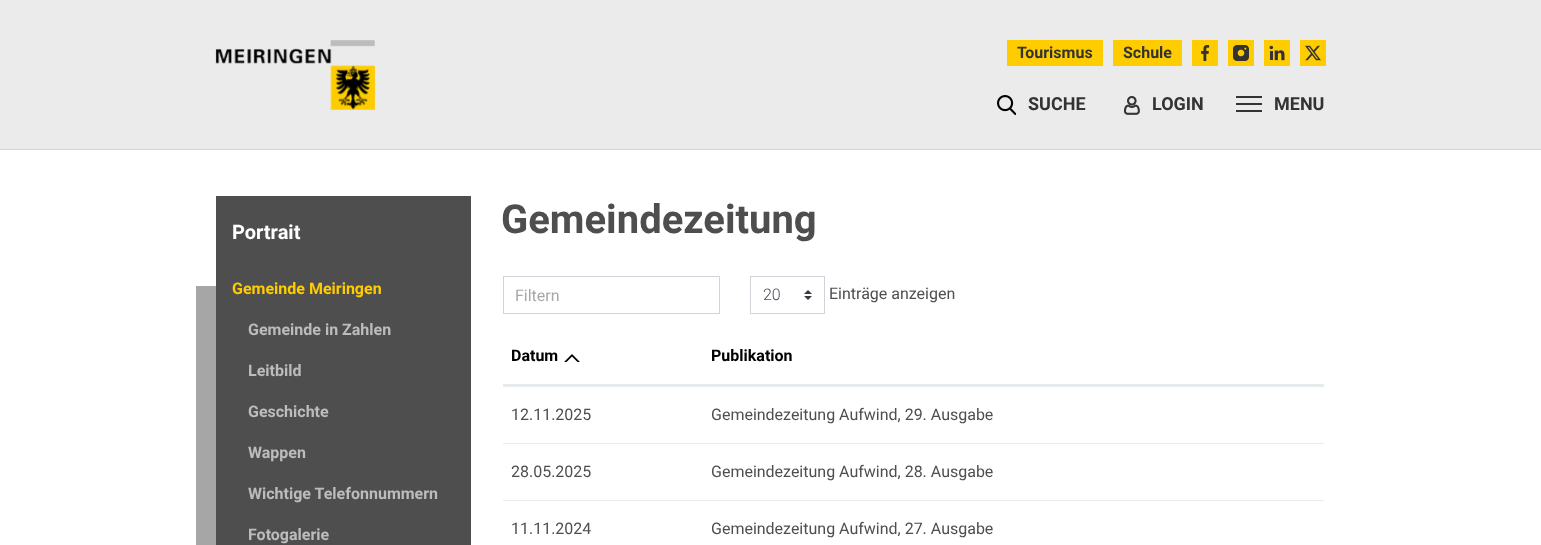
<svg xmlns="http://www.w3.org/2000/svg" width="1541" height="545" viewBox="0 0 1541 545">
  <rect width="100%" height="100%" fill="rgb(255,255,255)"/>
  <rect x="0" y="0" width="1541" height="149" fill="rgb(235,235,235)"/>
  <rect x="0" y="149" width="1541" height="1" fill="rgb(211,213,216)"/>
  <rect x="1007" y="40" width="96" height="26" fill="rgb(255,204,0)"/>
  <text x="1017" y="58" font-family="Roboto" font-size="16" font-weight="bold" fill="rgb(51,51,51)">Tourismus</text>
  <rect x="1113" y="40" width="69" height="26" fill="rgb(255,204,0)"/>
  <text x="1123" y="58" font-family="Roboto" font-size="16" font-weight="bold" fill="rgb(51,51,51)">Schule</text>
  <rect x="1192" y="40" width="26" height="26" fill="rgb(255,204,0)"/>
  <image x="1201" y="45" width="9" height="16" href="pic1.png"/>
  <rect x="1228" y="40" width="26" height="26" fill="rgb(255,204,0)"/>
  <image x="1233" y="45" width="16" height="16" href="pic2.png"/>
  <rect x="1264" y="40" width="26" height="26" fill="rgb(255,204,0)"/>
  <image x="1269" y="45" width="16" height="16" href="pic3.png"/>
  <rect x="1300" y="40" width="26" height="26" fill="rgb(255,204,0)"/>
  <image x="1305" y="45" width="16" height="16" href="pic4.png"/>
  <image x="215" y="40" width="160" height="70" href="pic5.png"/>
  <image x="997" y="95" width="19" height="20" href="pic6.png"/>
  <text x="1028" y="110" font-family="Roboto" font-size="18" font-weight="bold" fill="rgb(51,51,51)">SUCHE</text>
  <image x="1124" y="96" width="16" height="19" href="pic7.png"/>
  <text x="1152" y="110" font-family="Roboto" font-size="18" font-weight="bold" fill="rgb(51,51,51)">LOGIN</text>
  <rect x="1236" y="96" width="26" height="2" fill="rgb(51,51,51)"/>
  <rect x="1236" y="103" width="26" height="2" fill="rgb(51,51,51)"/>
  <rect x="1236" y="110" width="26" height="2" fill="rgb(51,51,51)"/>
  <text x="1274" y="110" font-family="Roboto" font-size="18" font-weight="bold" fill="rgb(51,51,51)">MENU</text>
  <rect x="216" y="196" width="255" height="349" fill="rgb(78,78,78)"/>
  <text x="232" y="239" font-family="Roboto" font-size="20" font-weight="bold" fill="rgb(255,255,255)">Portrait</text>
  <rect x="196" y="286" width="20" height="259" fill="rgb(166,166,166)"/>
  <text x="232" y="294" font-family="Roboto" font-size="16" font-weight="bold" fill="rgb(255,204,0)">Gemeinde Meiringen</text>
  <g font-family="Roboto" font-size="16" font-weight="bold" fill="rgb(187,188,188)">
    <text x="248" y="335">Gemeinde in Zahlen</text>
    <text x="248" y="376">Leitbild</text>
    <text x="248" y="417">Geschichte</text>
    <text x="248" y="458">Wappen</text>
    <text x="248" y="499">Wichtige Telefonnummern</text>
    <text x="248" y="540">Fotogalerie</text>
  </g>
  <text x="501" y="233" font-family="Roboto" font-size="40" font-weight="bold" fill="rgb(78,78,78)">Gemeindezeitung</text>
  <rect x="503.5" y="276.5" width="216" height="37" fill="none" stroke="rgb(206,212,218)"/>
  <text x="515" y="301" font-family="Roboto" font-size="16" fill="rgb(167,167,167)">Filtern</text>
  <image x="804" y="290" width="8" height="10" href="pic8.png"/>
  <rect x="750.5" y="276.5" width="74" height="37" fill="none" stroke="rgb(206,212,218)"/>
  <text x="763" y="300" font-family="Roboto" font-size="16" font-weight="300" fill="rgb(73,80,87)">20</text>
  <text x="829" y="299" font-family="Roboto" font-size="16" fill="rgb(78,78,78)">Einträge anzeigen</text>
  <rect x="503" y="384" width="821" height="2" fill="rgb(230,236,238)"/>
  <text x="511" y="361" font-family="Roboto" font-size="16" font-weight="bold" fill="rgb(0,0,0)">Datum</text>
  <image x="564" y="354" width="16" height="8" href="pic9.png"/>
  <text x="711" y="361" font-family="Roboto" font-size="16" font-weight="bold" fill="rgb(0,0,0)">Publikation</text>
  <rect x="503" y="386" width="821" height="1" fill="rgb(230,236,238)"/>
  <g font-family="Roboto" font-size="16" fill="rgb(78,78,78)">
    <text x="511" y="420">12.11.2025</text>
    <text x="711" y="420">Gemeindezeitung Aufwind, 29. Ausgabe</text>
  </g>
  <rect x="503" y="443" width="821" height="1" fill="rgb(230,236,238)"/>
  <g font-family="Roboto" font-size="16" fill="rgb(78,78,78)">
    <text x="511" y="477">28.05.2025</text>
    <text x="711" y="477">Gemeindezeitung Aufwind, 28. Ausgabe</text>
  </g>
  <rect x="503" y="500" width="821" height="1" fill="rgb(230,236,238)"/>
  <g font-family="Roboto" font-size="16" fill="rgb(78,78,78)">
    <text x="511" y="534">11.11.2024</text>
    <text x="711" y="534">Gemeindezeitung Aufwind, 27. Ausgabe</text>
  </g>
</svg>
